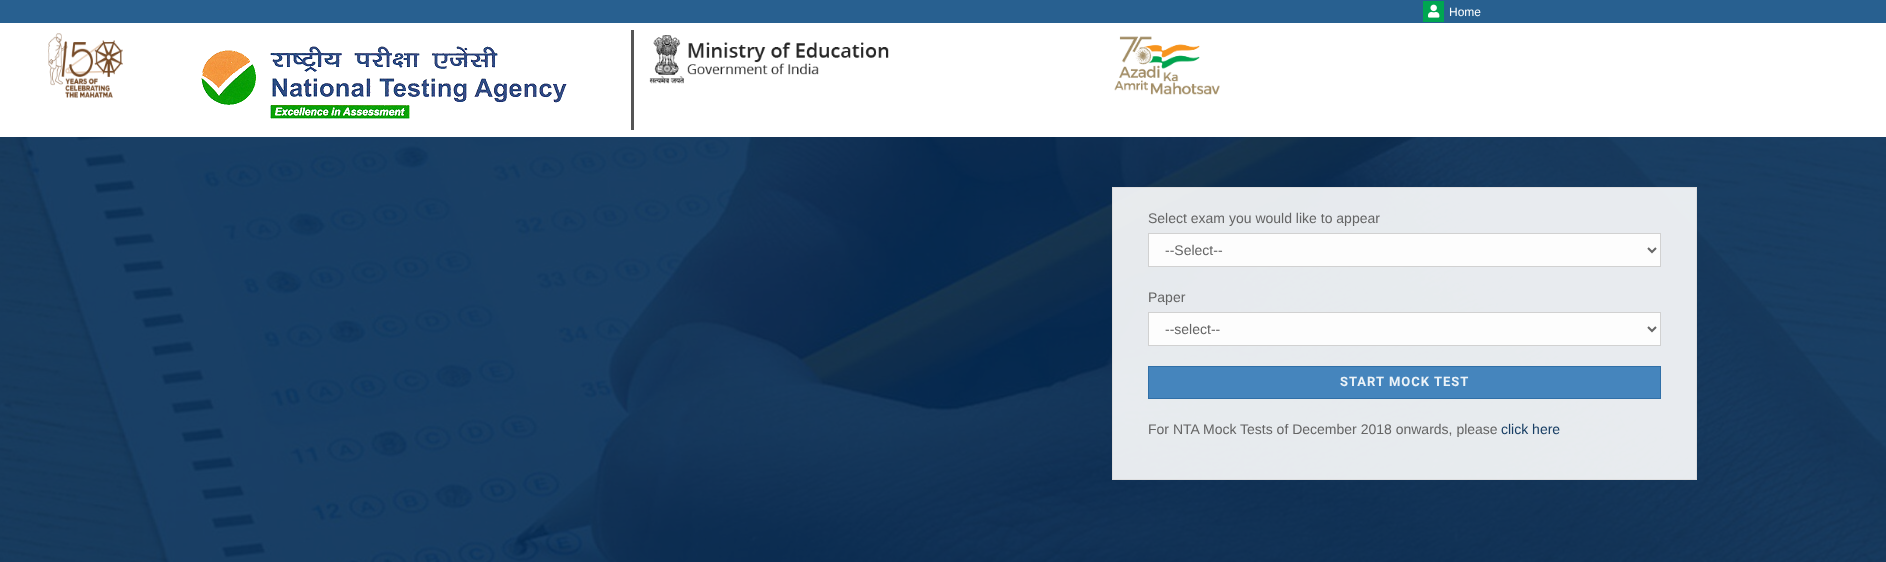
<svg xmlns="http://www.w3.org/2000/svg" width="1886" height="562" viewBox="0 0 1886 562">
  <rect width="100%" height="100%" fill="rgb(255,255,255)"/>
  <rect x="0" y="0" width="1886" height="23" fill="rgb(40,96,144)"/>
  <rect x="1423" y="1" width="21" height="21" fill="rgb(0,166,81)"/>
  <image x="1428" y="4" width="12" height="14" href="pic1.png"/>
  <text x="1449" y="16" font-family="Liberation Sans" font-size="12" fill="rgb(255,255,255)">Home</text>
  <image x="48" y="33" width="75" height="65" href="pic2.png"/>
  <rect x="631" y="30" width="3" height="100" fill="rgb(85,85,85)"/>
  <image x="201" y="46" width="366" height="73" href="pic3.png"/>
  <image x="649" y="35" width="240" height="49" href="pic4.png"/>
  <image x="1114" y="36" width="106" height="59" href="pic5.png"/>
  <image x="0" y="137" width="1886" height="425" href="pic6.png"/>
  <rect x="1112.5" y="187.5" width="584" height="292" fill="rgba(255,255,255,0.9)" stroke="rgb(222,222,223)"/>
  <text x="1148" y="223" font-family="Liberation Sans" font-size="14" fill="rgb(100,100,100)">Select exam you would like to appear</text>
  <rect x="1148.5" y="233.5" width="512" height="33" fill="rgb(253,253,253)" stroke="rgb(209,209,209)"/>
  <path d="M1648 248L1652 252L1656 248" fill="none" stroke="rgb(102,102,102)" stroke-width="2"/>
  <g font-family="Liberation Sans" font-size="14" fill="rgb(100,100,100)">
    <text x="1165" y="255">--Select--</text>
    <text x="1148" y="302">Paper</text>
  </g>
  <rect x="1148.5" y="312.5" width="512" height="33" fill="rgb(253,253,253)" stroke="rgb(209,209,209)"/>
  <path d="M1648 327L1652 331L1656 327" fill="none" stroke="rgb(102,102,102)" stroke-width="2"/>
  <text x="1165" y="334" font-family="Liberation Sans" font-size="14" fill="rgb(100,100,100)">--select--</text>
  <rect x="1148.5" y="366.5" width="512" height="32" fill="rgb(69,133,189)" stroke="rgb(48,111,167)"/>
  <text x="1340" y="386" font-family="Roboto" font-size="13" font-weight="bold" letter-spacing="1" fill="rgb(236,243,248)">START MOCK TEST</text>
  <text x="1148" y="434" font-family="Liberation Sans" font-size="14" fill="rgb(100,100,100)">For NTA Mock Tests of December 2018 onwards, please</text>
  <text x="1501" y="434" font-family="Liberation Sans" font-size="14" fill="rgb(24,62,100)">click here</text>
</svg>
